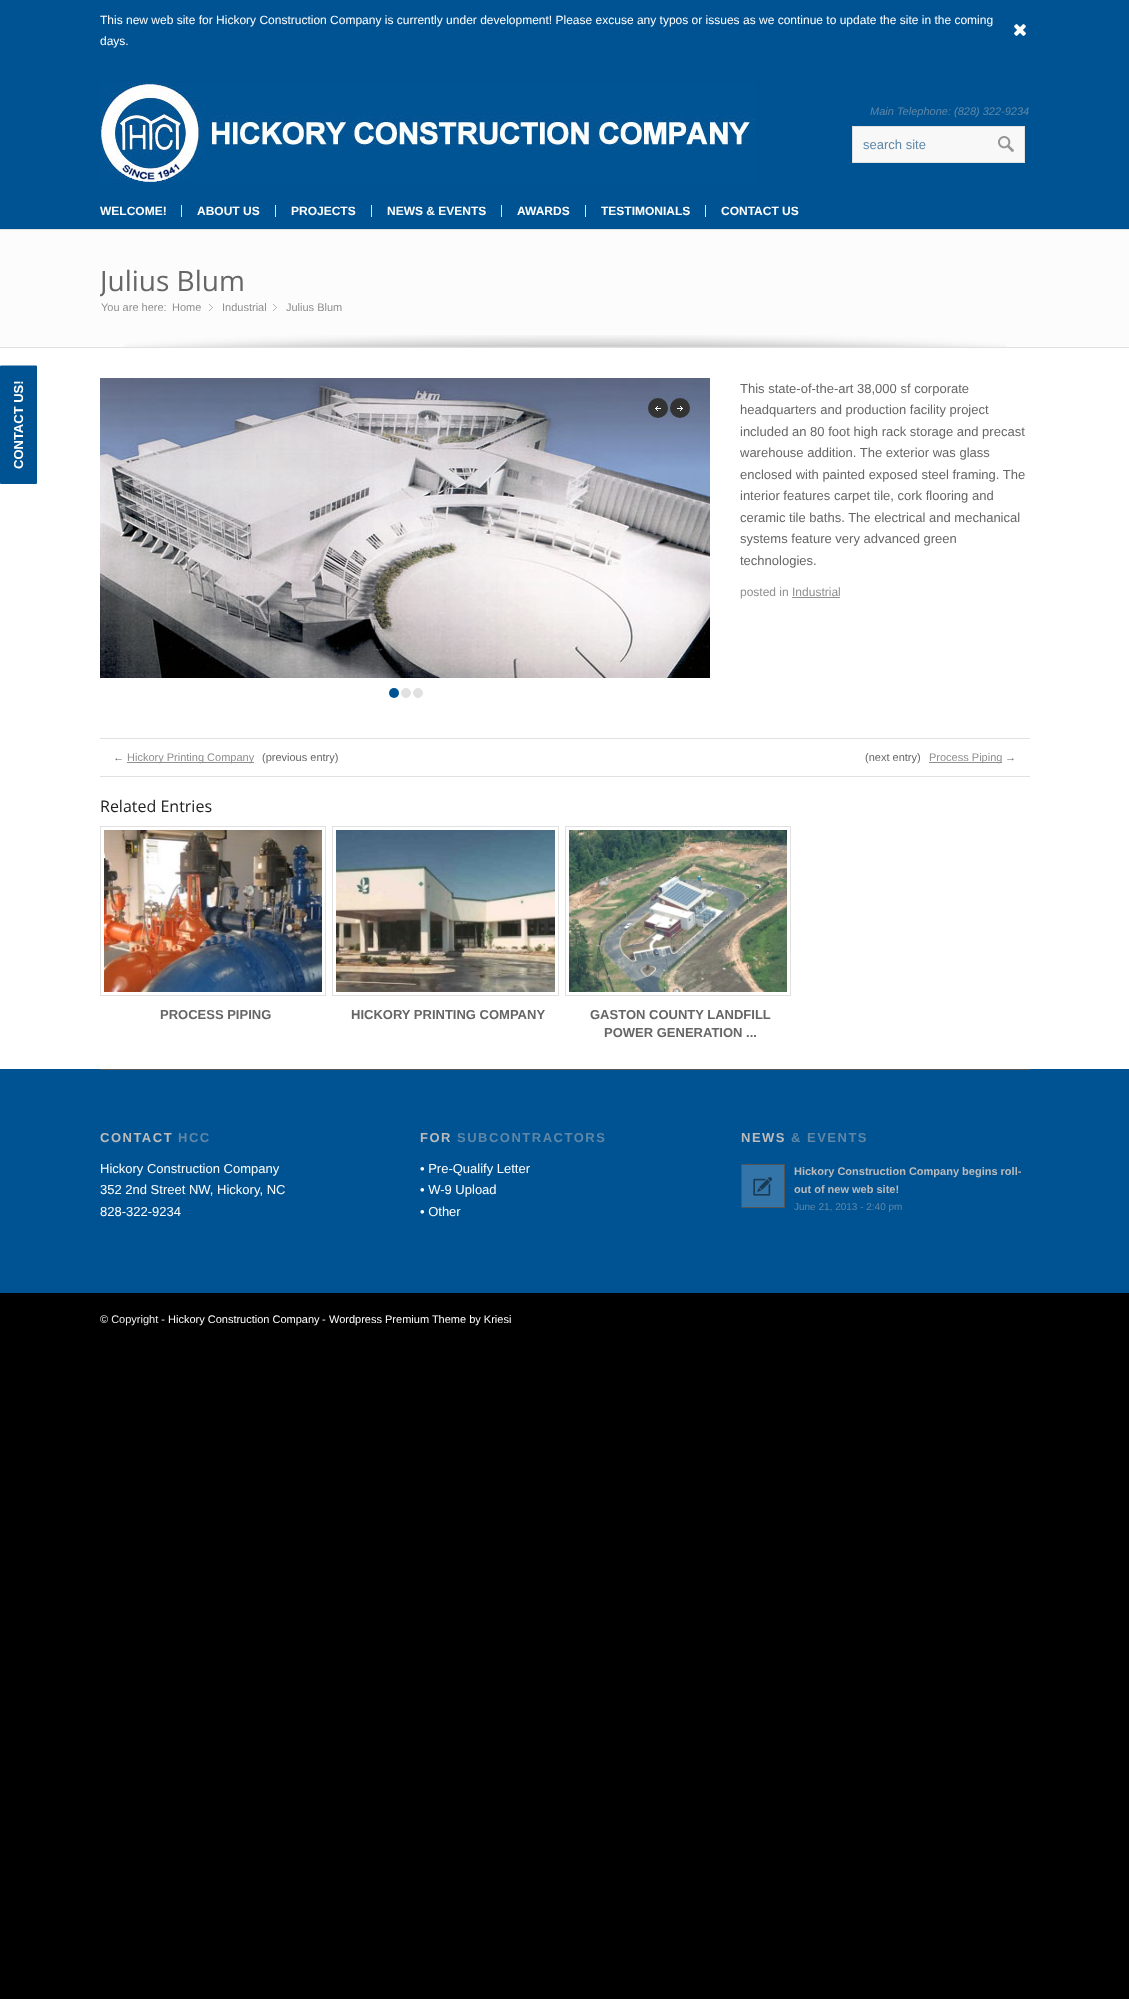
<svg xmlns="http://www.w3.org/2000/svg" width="1129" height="1999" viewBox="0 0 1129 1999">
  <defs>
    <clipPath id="clip1"><rect x="100" y="230" width="930" height="117"/></clipPath>
    <clipPath id="clip2"><rect x="100" y="1293" width="930" height="45"/></clipPath>
  </defs>
  <rect width="100%" height="100%" fill="rgb(0,0,0)"/>
  <rect x="0" y="348" width="1129" height="721" fill="rgb(255,255,255)"/>
  <rect x="0" y="0" width="1129" height="229" fill="rgb(0,83,147)"/>
  <text x="100" y="24" font-family="Liberation Sans" font-size="12" fill="rgb(255,255,255)">This new web site for Hickory Construction Company is currently under development! Please excuse any typos or issues as we continue to update the site in the coming</text>
  <image x="1014" y="24" width="12" height="12" href="pic1.png"/>
  <text x="100" y="45" font-family="Liberation Sans" font-size="12" fill="rgb(255,255,255)">days.</text>
  <rect x="0" y="229" width="1129" height="1" fill="rgb(225,225,225)"/>
  <image x="100" y="83" width="656" height="100" href="pic2.png"/>
  <text x="870" y="115" font-family="Liberation Sans" font-size="11" font-style="italic" fill="rgb(94,135,167)">Main Telephone: (828) 322-9234</text>
  <rect x="852.5" y="126.5" width="172" height="36" fill="rgb(248,248,248)" stroke="rgb(225,225,225)"/>
  <text x="863" y="149" font-family="Liberation Sans" font-size="13" fill="rgb(94,135,167)">search site</text>
  <image x="998" y="136" width="16" height="16" href="pic3.png"/>
  <text x="100" y="215" font-family="Liberation Sans" font-size="12" font-weight="bold" fill="rgb(255,255,255)">WELCOME!</text>
  <rect x="181" y="205" width="1" height="12" fill="rgb(225,225,225)"/>
  <text x="197" y="215" font-family="Liberation Sans" font-size="12" font-weight="bold" fill="rgb(255,255,255)">ABOUT US</text>
  <rect x="275" y="205" width="1" height="12" fill="rgb(225,225,225)"/>
  <text x="291" y="215" font-family="Liberation Sans" font-size="12" font-weight="bold" fill="rgb(255,255,255)">PROJECTS</text>
  <rect x="371" y="205" width="1" height="12" fill="rgb(225,225,225)"/>
  <text x="387" y="215" font-family="Liberation Sans" font-size="12" font-weight="bold" fill="rgb(255,255,255)">NEWS &amp; EVENTS</text>
  <rect x="501" y="205" width="1" height="12" fill="rgb(225,225,225)"/>
  <text x="517" y="215" font-family="Liberation Sans" font-size="12" font-weight="bold" fill="rgb(255,255,255)">AWARDS</text>
  <rect x="585" y="205" width="1" height="12" fill="rgb(225,225,225)"/>
  <text x="601" y="215" font-family="Liberation Sans" font-size="12" font-weight="bold" fill="rgb(255,255,255)">TESTIMONIALS</text>
  <rect x="705" y="205" width="1" height="12" fill="rgb(225,225,225)"/>
  <text x="721" y="215" font-family="Liberation Sans" font-size="12" font-weight="bold" fill="rgb(255,255,255)">CONTACT US</text>
  <rect x="1" y="366" width="35" height="117" fill="rgb(0,83,147)"/>
  <path d="M.5 483.5V366H36.5V483.5Z" fill="none" stroke="rgb(0,83,147)"/>
  <text x="23" y="469" transform="rotate(-90 23 469)" font-family="Liberation Sans" font-size="13" font-weight="bold" fill="rgb(255,255,255)">CONTACT US!</text>
  <rect x="0" y="230" width="1129" height="117" fill="rgb(252,252,252)"/>
  <rect x="0" y="347" width="1129" height="1" fill="rgb(225,225,225)"/>
  <g clip-path="url(#clip1)">
    <text x="100" y="291" font-family="Open Sans" font-size="28" fill="rgb(102,102,102)">Julius Blum</text>
  </g>
  <g font-family="Liberation Sans" font-size="11" fill="rgb(143,143,143)">
    <text x="101" y="311">You are here:</text>
    <text x="172" y="311">Home</text>
  </g>
  <image x="209" y="304" width="4" height="7" href="pic4.png"/>
  <text x="222" y="311" font-family="Liberation Sans" font-size="11" fill="rgb(143,143,143)">Industrial</text>
  <image x="273" y="304" width="4" height="7" href="pic4.png"/>
  <text x="286" y="311" font-family="Liberation Sans" font-size="11" fill="rgb(143,143,143)">Julius Blum</text>
  <image x="124" y="335" width="882" height="12" href="pic5.png"/>
  <image x="100" y="378" width="610" height="300" href="pic6.png"/>
  <circle cx="658" cy="408" r="10" fill="rgb(51,51,51)"/>
  <image x="655" y="406" width="6" height="5" href="pic7.png"/>
  <circle cx="680" cy="408" r="10" fill="rgb(51,51,51)"/>
  <image x="677" y="406" width="6" height="5" href="pic8.png"/>
  <circle cx="394" cy="693" r="5" fill="rgb(0,83,147)"/>
  <circle cx="406" cy="693" r="4.5" fill="rgb(225,225,225)" stroke="rgb(225,225,225)"/>
  <circle cx="418" cy="693" r="4.5" fill="rgb(225,225,225)" stroke="rgb(225,225,225)"/>
  <g font-family="Liberation Sans" font-size="13" fill="rgb(102,102,102)">
    <text>
      <tspan x="740" y="393">This state-of-the-art 38,000 sf corporate</tspan>
      <tspan x="740" y="414">headquarters and production facility project</tspan>
      <tspan x="740" y="436">included an 80 foot high rack storage and precast</tspan>
      <tspan x="740" y="457">warehouse addition. The exterior was glass</tspan>
      <tspan x="740" y="479">enclosed with painted exposed steel framing. The</tspan>
      <tspan x="740" y="500">interior features carpet tile, cork flooring and</tspan>
      <tspan x="740" y="522">ceramic tile baths. The electrical and mechanical</tspan>
      <tspan x="740" y="543">systems feature very advanced green</tspan>
      <tspan x="740" y="565">technologies.</tspan>
    </text>
  </g>
  <text x="740" y="596" font-family="Liberation Sans" font-size="12" fill="rgb(143,143,143)">posted in Industrial</text>
  <rect x="792" y="597" width="48" height="1" fill="rgb(145,145,145)"/>
  <rect x="100" y="738" width="930" height="1" fill="rgb(225,225,225)"/>
  <text x="113" y="761" font-family="Liberation Sans" font-size="11" fill="rgb(102,102,102)">←</text>
  <rect x="127" y="762" width="127" height="1" fill="rgb(145,145,145)"/>
  <text x="127" y="761" font-family="Liberation Sans" font-size="11" fill="rgb(143,143,143)">Hickory Printing Company</text>
  <g font-family="Liberation Sans" font-size="11" fill="rgb(102,102,102)">
    <text x="262" y="761">(previous entry)</text>
    <text x="865" y="761">(next entry)</text>
  </g>
  <rect x="929" y="762" width="73" height="1" fill="rgb(145,145,145)"/>
  <text x="929" y="761" font-family="Liberation Sans" font-size="11" fill="rgb(143,143,143)">Process Piping</text>
  <text x="1005" y="761" font-family="Liberation Sans" font-size="11" fill="rgb(102,102,102)">→</text>
  <rect x="100" y="776" width="930" height="1" fill="rgb(225,225,225)"/>
  <text x="100" y="812" font-family="Open Sans" font-size="16" fill="rgb(34,34,34)">Related Entries</text>
  <rect x="100.5" y="826.5" width="225" height="169" fill="none" stroke="rgb(225,225,225)"/>
  <image x="104" y="830" width="218" height="162" href="pic9.png"/>
  <text x="160" y="1019" font-family="Liberation Sans" font-size="13" font-weight="bold" fill="rgb(102,102,102)">PROCESS PIPING</text>
  <rect x="332.5" y="826.5" width="226" height="169" fill="none" stroke="rgb(225,225,225)"/>
  <image x="336" y="830" width="219" height="162" href="pic10.png"/>
  <text x="351" y="1019" font-family="Liberation Sans" font-size="13" font-weight="bold" fill="rgb(102,102,102)">HICKORY PRINTING COMPANY</text>
  <rect x="565.5" y="826.5" width="225" height="169" fill="none" stroke="rgb(225,225,225)"/>
  <image x="569" y="830" width="218" height="162" href="pic11.png"/>
  <g font-family="Liberation Sans" font-size="13" font-weight="bold" fill="rgb(102,102,102)">
    <text x="590" y="1019">GASTON COUNTY LANDFILL</text>
    <text x="604" y="1037">POWER GENERATION ...</text>
  </g>
  <rect x="0" y="1069" width="1129" height="224" fill="rgb(0,83,147)"/>
  <rect x="100" y="1069" width="930" height="1" fill="rgb(85,85,85)"/>
  <text x="100" y="1142" font-family="Liberation Sans" font-size="13" font-weight="bold" letter-spacing="1.5" fill="rgb(187,187,187)">CONTACT</text>
  <text x="178" y="1142" font-family="Liberation Sans" font-size="13" font-weight="bold" letter-spacing="1.5" fill="rgb(94,135,167)">HCC</text>
  <g font-family="Liberation Sans" font-size="13" fill="rgb(255,255,255)">
    <text>
      <tspan x="100" y="1173">Hickory Construction Company</tspan>
      <tspan x="100" y="1194">352 2nd Street NW, Hickory, NC</tspan>
      <tspan x="100" y="1216">828-322-9234</tspan>
    </text>
  </g>
  <text x="420" y="1142" font-family="Liberation Sans" font-size="13" font-weight="bold" letter-spacing="1.5" fill="rgb(187,187,187)">FOR</text>
  <text x="457" y="1142" font-family="Liberation Sans" font-size="13" font-weight="bold" letter-spacing="1.5" fill="rgb(94,135,167)">SUBCONTRACTORS</text>
  <g font-family="Liberation Sans" font-size="13" fill="rgb(255,255,255)">
    <text>
      <tspan x="420" y="1173">• Pre-Qualify Letter</tspan>
      <tspan x="420" y="1194">• W-9 Upload</tspan>
      <tspan x="420" y="1216">• Other</tspan>
    </text>
  </g>
  <text x="741" y="1142" font-family="Liberation Sans" font-size="13" font-weight="bold" letter-spacing="1.5" fill="rgb(187,187,187)">NEWS</text>
  <text x="791" y="1142" font-family="Liberation Sans" font-size="13" font-weight="bold" letter-spacing="1.5" fill="rgb(94,135,167)">&amp; EVENTS</text>
  <image x="742" y="1165" width="42" height="42" href="pic12.png"/>
  <rect x="741.5" y="1164.5" width="43" height="43" fill="none" stroke="rgb(85,85,85)"/>
  <g font-family="Liberation Sans" font-size="11" font-weight="bold" fill="rgb(187,187,187)">
    <text>
      <tspan x="794" y="1175">Hickory Construction Company begins roll-</tspan>
      <tspan x="794" y="1193">out of new web site!</tspan>
    </text>
  </g>
  <text x="794" y="1210" font-family="Liberation Sans" font-size="10" fill="rgb(94,135,167)">June 21, 2013 - 2:40 pm</text>
  <g clip-path="url(#clip2)">
    <text x="100" y="1323" font-family="Liberation Sans" font-size="11" fill="rgb(238,238,238)">© Copyright -</text>
  </g>
  <text x="168" y="1323" font-family="Liberation Sans" font-size="11" fill="rgb(255,255,255)">Hickory Construction Company</text>
  <text x="322" y="1323" font-family="Liberation Sans" font-size="11" fill="rgb(238,238,238)">-</text>
  <text x="329" y="1323" font-family="Liberation Sans" font-size="11" fill="rgb(255,255,255)">Wordpress Premium Theme by Kriesi</text>
</svg>
